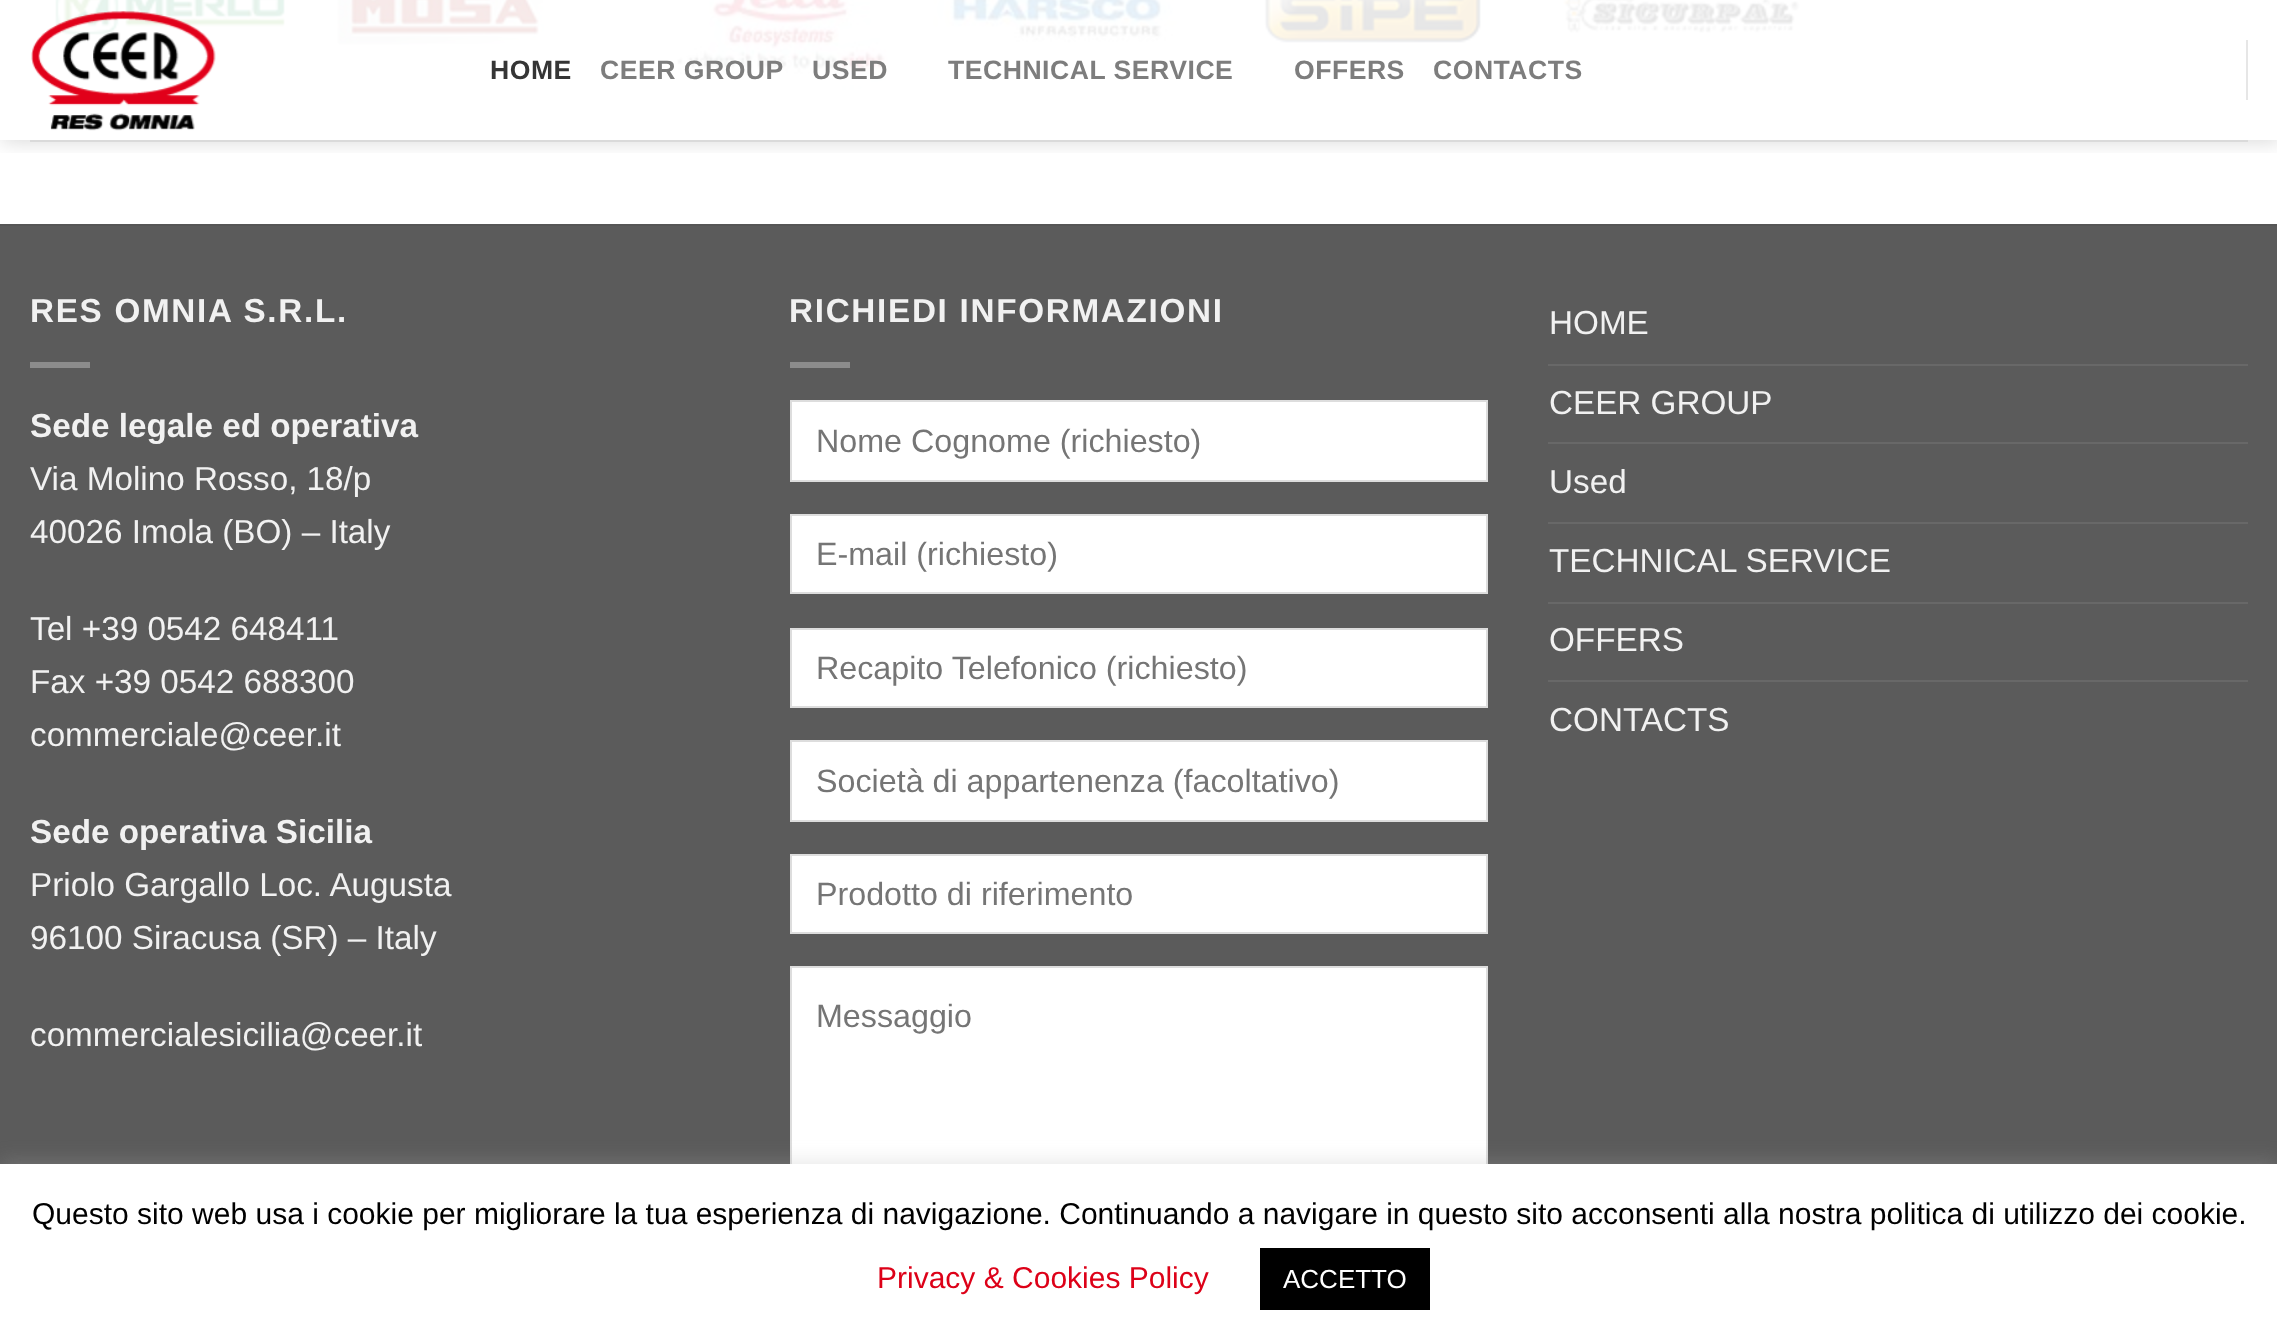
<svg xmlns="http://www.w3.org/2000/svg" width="2277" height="1343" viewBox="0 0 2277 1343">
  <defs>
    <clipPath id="clip1"><rect x="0" y="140" width="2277" height="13"/></clipPath>
  </defs>
  <rect width="100%" height="100%" fill="rgb(255,255,255)"/>
  <image x="55" y="0" width="489" height="45" href="pic1.png"/>
  <image x="677" y="0" width="502" height="91" href="pic2.png"/>
  <image x="1263" y="0" width="538" height="43" href="pic3.png"/>
  <g clip-path="url(#clip1)">
    <rect x="2" y="2" width="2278" height="140" fill="rgba(0,0,0,0.15)" filter="blur(10px)"/>
  </g>
  <image x="31" y="11" width="185" height="120" href="pic4.png"/>
  <text x="490" y="79" font-family="Liberation Sans" font-size="26.6" font-weight="bold" letter-spacing="0.5" fill="rgb(53,53,53)">HOME</text>
  <g font-family="Liberation Sans" font-size="26.6" font-weight="bold" letter-spacing="0.5" fill="rgb(125,125,125)">
    <text x="600" y="79">CEER GROUP</text>
    <text x="812" y="79">USED</text>
    <text x="948" y="79">TECHNICAL SERVICE</text>
    <text x="1294" y="79">OFFERS</text>
    <text x="1433" y="79">CONTACTS</text>
  </g>
  <rect x="2246" y="40" width="2" height="60" fill="rgb(230,230,230)"/>
  <rect x="30" y="140" width="2218" height="2" fill="rgb(218,218,218)"/>
  <rect x="0" y="226" width="2277" height="938" fill="rgb(91,91,91)"/>
  <rect x="0" y="224" width="2277" height="2" fill="rgb(86,86,86)"/>
  <text x="30" y="322" font-family="Liberation Sans" font-size="33.25" font-weight="bold" letter-spacing="1.7" fill="rgb(241,241,241)">RES OMNIA S.R.L.</text>
  <rect x="30" y="362" width="60" height="6" fill="rgb(140,140,140)"/>
  <text x="30" y="437" font-family="Liberation Sans" font-size="33.25" font-weight="bold" fill="rgb(241,241,241)">Sede legale ed operativa</text>
  <g font-family="Liberation Sans" font-size="33.25" fill="rgb(241,241,241)">
    <text>
      <tspan x="30" y="490">Via Molino Rosso, 18/p</tspan>
      <tspan x="30" y="543">40026 Imola (BO) – Italy</tspan>
    </text>
    <text>
      <tspan x="30" y="640">Tel +39 0542 648411</tspan>
      <tspan x="30" y="693">Fax +39 0542 688300</tspan>
      <tspan x="30" y="746">commerciale@ceer.it</tspan>
    </text>
  </g>
  <text x="30" y="843" font-family="Liberation Sans" font-size="33.25" font-weight="bold" fill="rgb(241,241,241)">Sede operativa Sicilia</text>
  <g font-family="Liberation Sans" font-size="33.25" fill="rgb(241,241,241)">
    <text>
      <tspan x="30" y="896">Priolo Gargallo Loc. Augusta</tspan>
      <tspan x="30" y="949">96100 Siracusa (SR) – Italy</tspan>
    </text>
    <text x="30" y="1046">commercialesicilia@ceer.it</text>
  </g>
  <text x="789" y="322" font-family="Liberation Sans" font-size="33.25" font-weight="bold" letter-spacing="1.7" fill="rgb(241,241,241)">RICHIEDI INFORMAZIONI</text>
  <rect x="790" y="362" width="60" height="6" fill="rgb(140,140,140)"/>
  <rect x="791" y="401" width="696" height="80" fill="rgb(255,255,255)" stroke="rgb(221,221,221)" stroke-width="2"/>
  <text x="816" y="452" font-family="Liberation Sans" font-size="32.25" fill="rgb(117,117,117)">Nome Cognome (richiesto)</text>
  <rect x="791" y="515" width="696" height="78" fill="rgb(255,255,255)" stroke="rgb(221,221,221)" stroke-width="2"/>
  <text x="816" y="565" font-family="Liberation Sans" font-size="32.25" fill="rgb(117,117,117)">E-mail (richiesto)</text>
  <rect x="791" y="629" width="696" height="78" fill="rgb(255,255,255)" stroke="rgb(221,221,221)" stroke-width="2"/>
  <text x="816" y="679" font-family="Liberation Sans" font-size="32.25" fill="rgb(117,117,117)">Recapito Telefonico (richiesto)</text>
  <rect x="791" y="741" width="696" height="80" fill="rgb(255,255,255)" stroke="rgb(221,221,221)" stroke-width="2"/>
  <text x="816" y="792" font-family="Liberation Sans" font-size="32.25" fill="rgb(117,117,117)">Società di appartenenza (facoltativo)</text>
  <rect x="791" y="855" width="696" height="78" fill="rgb(255,255,255)" stroke="rgb(221,221,221)" stroke-width="2"/>
  <text x="816" y="905" font-family="Liberation Sans" font-size="32.25" fill="rgb(117,117,117)">Prodotto di riferimento</text>
  <rect x="792" y="968" width="694" height="196" fill="rgb(255,255,255)"/>
  <rect x="791" y="967" width="696" height="238" fill="none" stroke="rgb(221,221,221)" stroke-width="2"/>
  <text x="816" y="1027" font-family="Liberation Sans" font-size="32.25" fill="rgb(117,117,117)">Messaggio</text>
  <text x="1549" y="334" font-family="Liberation Sans" font-size="33.25" fill="rgb(241,241,241)">HOME</text>
  <rect x="1548" y="364" width="700" height="2" fill="rgb(104,104,104)"/>
  <text x="1549" y="414" font-family="Liberation Sans" font-size="33.25" fill="rgb(241,241,241)">CEER GROUP</text>
  <rect x="1548" y="442" width="700" height="2" fill="rgb(104,104,104)"/>
  <text x="1549" y="493" font-family="Liberation Sans" font-size="33.25" fill="rgb(241,241,241)">Used</text>
  <rect x="1548" y="522" width="700" height="2" fill="rgb(104,104,104)"/>
  <text x="1549" y="572" font-family="Liberation Sans" font-size="33.25" fill="rgb(241,241,241)">TECHNICAL SERVICE</text>
  <rect x="1548" y="602" width="700" height="2" fill="rgb(104,104,104)"/>
  <text x="1549" y="651" font-family="Liberation Sans" font-size="33.25" fill="rgb(241,241,241)">OFFERS</text>
  <rect x="1548" y="680" width="700" height="2" fill="rgb(104,104,104)"/>
  <text x="1549" y="731" font-family="Liberation Sans" font-size="33.25" fill="rgb(241,241,241)">CONTACTS</text>
  <rect x="0" y="1162" width="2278" height="180" fill="rgba(172,171,171,0.3)" filter="blur(10px)"/>
  <rect x="0" y="1164" width="2277" height="179" fill="rgb(255,255,255)"/>
  <text x="32" y="1224" font-family="Liberation Sans" font-size="30" fill="rgb(0,0,0)">Questo sito web usa i cookie per migliorare la tua esperienza di navigazione. Continuando a navigare in questo sito acconsenti alla nostra politica di utilizzo dei cookie.</text>
  <text x="877" y="1288" font-family="Liberation Sans" font-size="30" fill="rgb(221,1,24)">Privacy &amp; Cookies Policy</text>
  <rect x="1260" y="1248" width="170" height="62" fill="rgb(0,0,0)"/>
  <text x="1283" y="1288" font-family="Liberation Sans" font-size="26" fill="rgb(255,255,255)">ACCETTO</text>
</svg>
